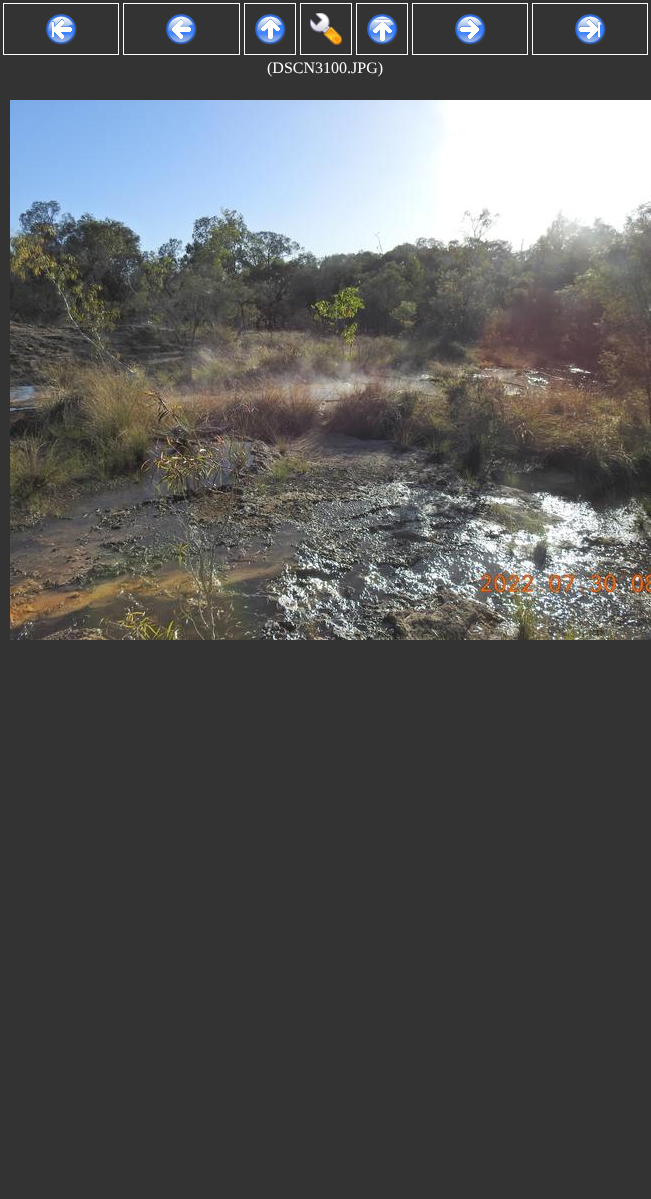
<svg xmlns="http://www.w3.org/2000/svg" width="651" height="1199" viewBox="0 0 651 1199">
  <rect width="100%" height="100%" fill="rgb(51,51,51)"/>
  <rect x="3.5" y="3.5" width="115" height="51" fill="none" stroke="rgb(255,255,255)"/>
  <image x="46" y="14" width="31" height="31" href="pic1.png"/>
  <rect x="123.5" y="3.5" width="116" height="51" fill="none" stroke="rgb(255,255,255)"/>
  <image x="166" y="14" width="31" height="31" href="pic2.png"/>
  <rect x="244.5" y="3.5" width="51" height="51" fill="none" stroke="rgb(255,255,255)"/>
  <image x="255" y="14" width="31" height="31" href="pic3.png"/>
  <rect x="300.5" y="3.5" width="51" height="51" fill="none" stroke="rgb(255,255,255)"/>
  <image x="310" y="13" width="32" height="32" href="pic4.png"/>
  <rect x="356.5" y="3.5" width="51" height="51" fill="none" stroke="rgb(255,255,255)"/>
  <image x="367" y="14" width="31" height="31" href="pic5.png"/>
  <rect x="412.5" y="3.5" width="115" height="51" fill="none" stroke="rgb(255,255,255)"/>
  <image x="455" y="14" width="31" height="31" href="pic6.png"/>
  <rect x="532.5" y="3.5" width="115" height="51" fill="none" stroke="rgb(255,255,255)"/>
  <image x="575" y="14" width="31" height="31" href="pic7.png"/>
  <text x="267" y="73" font-family="Liberation Serif" font-size="16" fill="rgb(255,255,255)">(DSCN3100.JPG)</text>
  <image x="10" y="100" width="641" height="540" href="pic8.png"/>
</svg>
